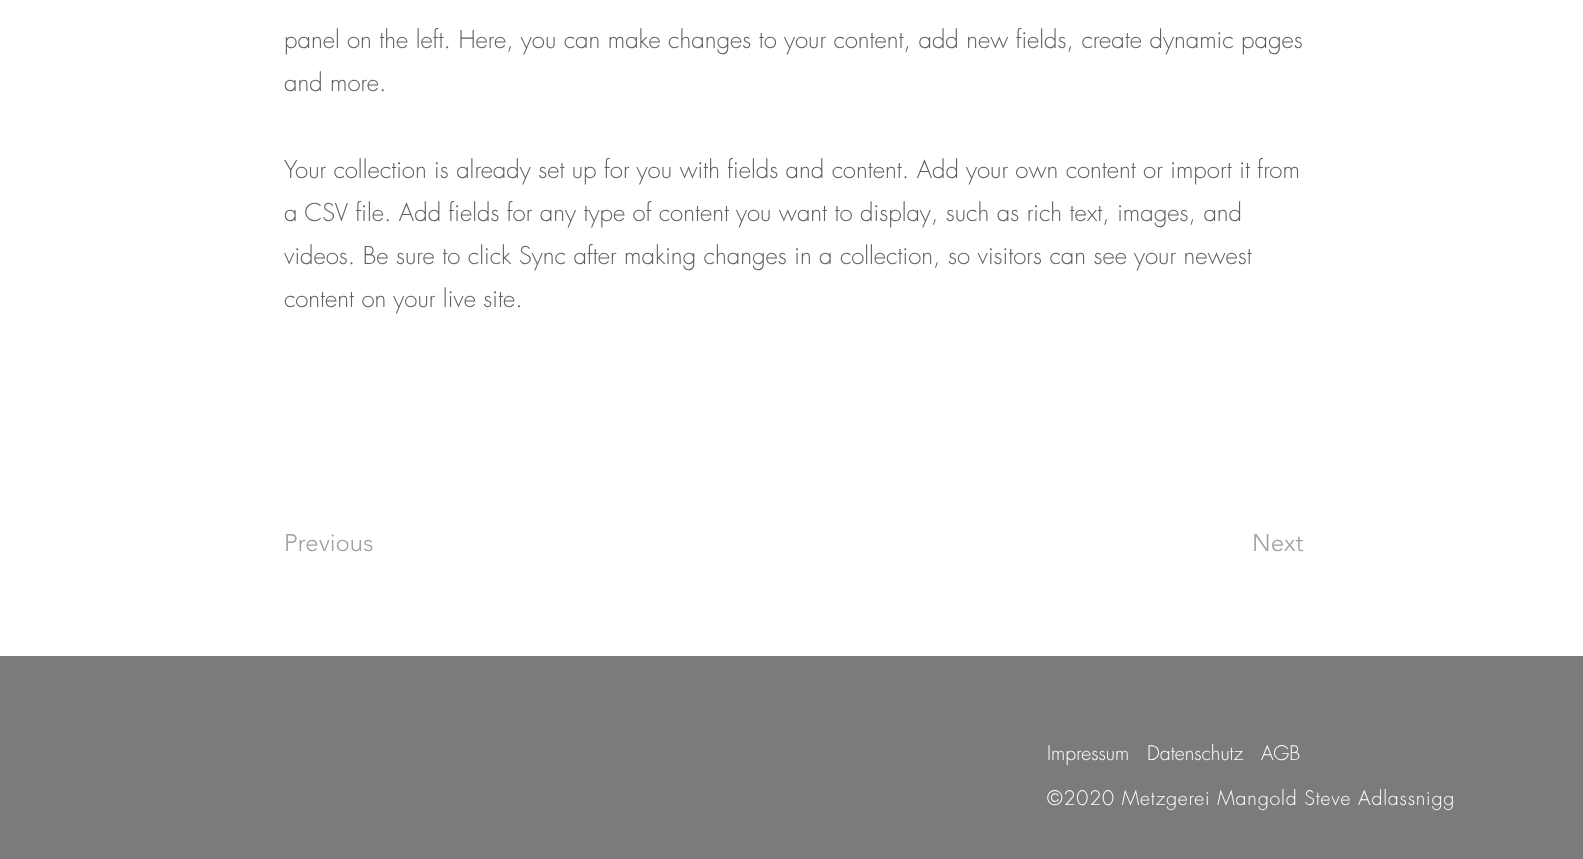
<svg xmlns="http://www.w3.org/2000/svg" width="1583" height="859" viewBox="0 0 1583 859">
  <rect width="100%" height="100%" fill="rgb(255,255,255)"/>
  <g font-family="futura" font-size="24" font-weight="300" fill="rgb(96,94,94)">
    <text>
      <tspan x="284" y="48">panel on the left. Here, you can make changes to your content, add new fields, create dynamic pages</tspan>
      <tspan x="284" y="91">and more.</tspan>
    </text>
    <text>
      <tspan x="284" y="178">Your collection is already set up for you with fields and content. Add your own content or import it from</tspan>
      <tspan x="284" y="221">a CSV file. Add fields for any type of content you want to display, such as rich text, images, and</tspan>
      <tspan x="284" y="264">videos. Be sure to click Sync after making changes in a collection, so visitors can see your newest</tspan>
      <tspan x="284" y="307">content on your live site.</tspan>
    </text>
  </g>
  <g font-family="'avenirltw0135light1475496'" font-size="24" font-weight="300" fill="rgb(160,160,159)">
    <text x="284" y="551">Previous</text>
    <text x="1252" y="551">Next</text>
  </g>
  <rect x="0" y="656" width="1583" height="203" fill="rgb(123,123,123)"/>
  <g font-family="futura" font-size="19.5" font-weight="300" fill="rgb(255,255,255)">
    <text x="1047" y="760">Impressum</text>
    <text x="1147" y="760">Datenschutz</text>
    <text x="1261" y="760">AGB</text>
  </g>
  <text x="1047" y="805" font-family="futura" font-size="19.5" font-weight="300" letter-spacing="0.8" fill="rgb(255,255,255)">©2020 Metzgerei Mangold Steve Adlassnigg</text>
</svg>
